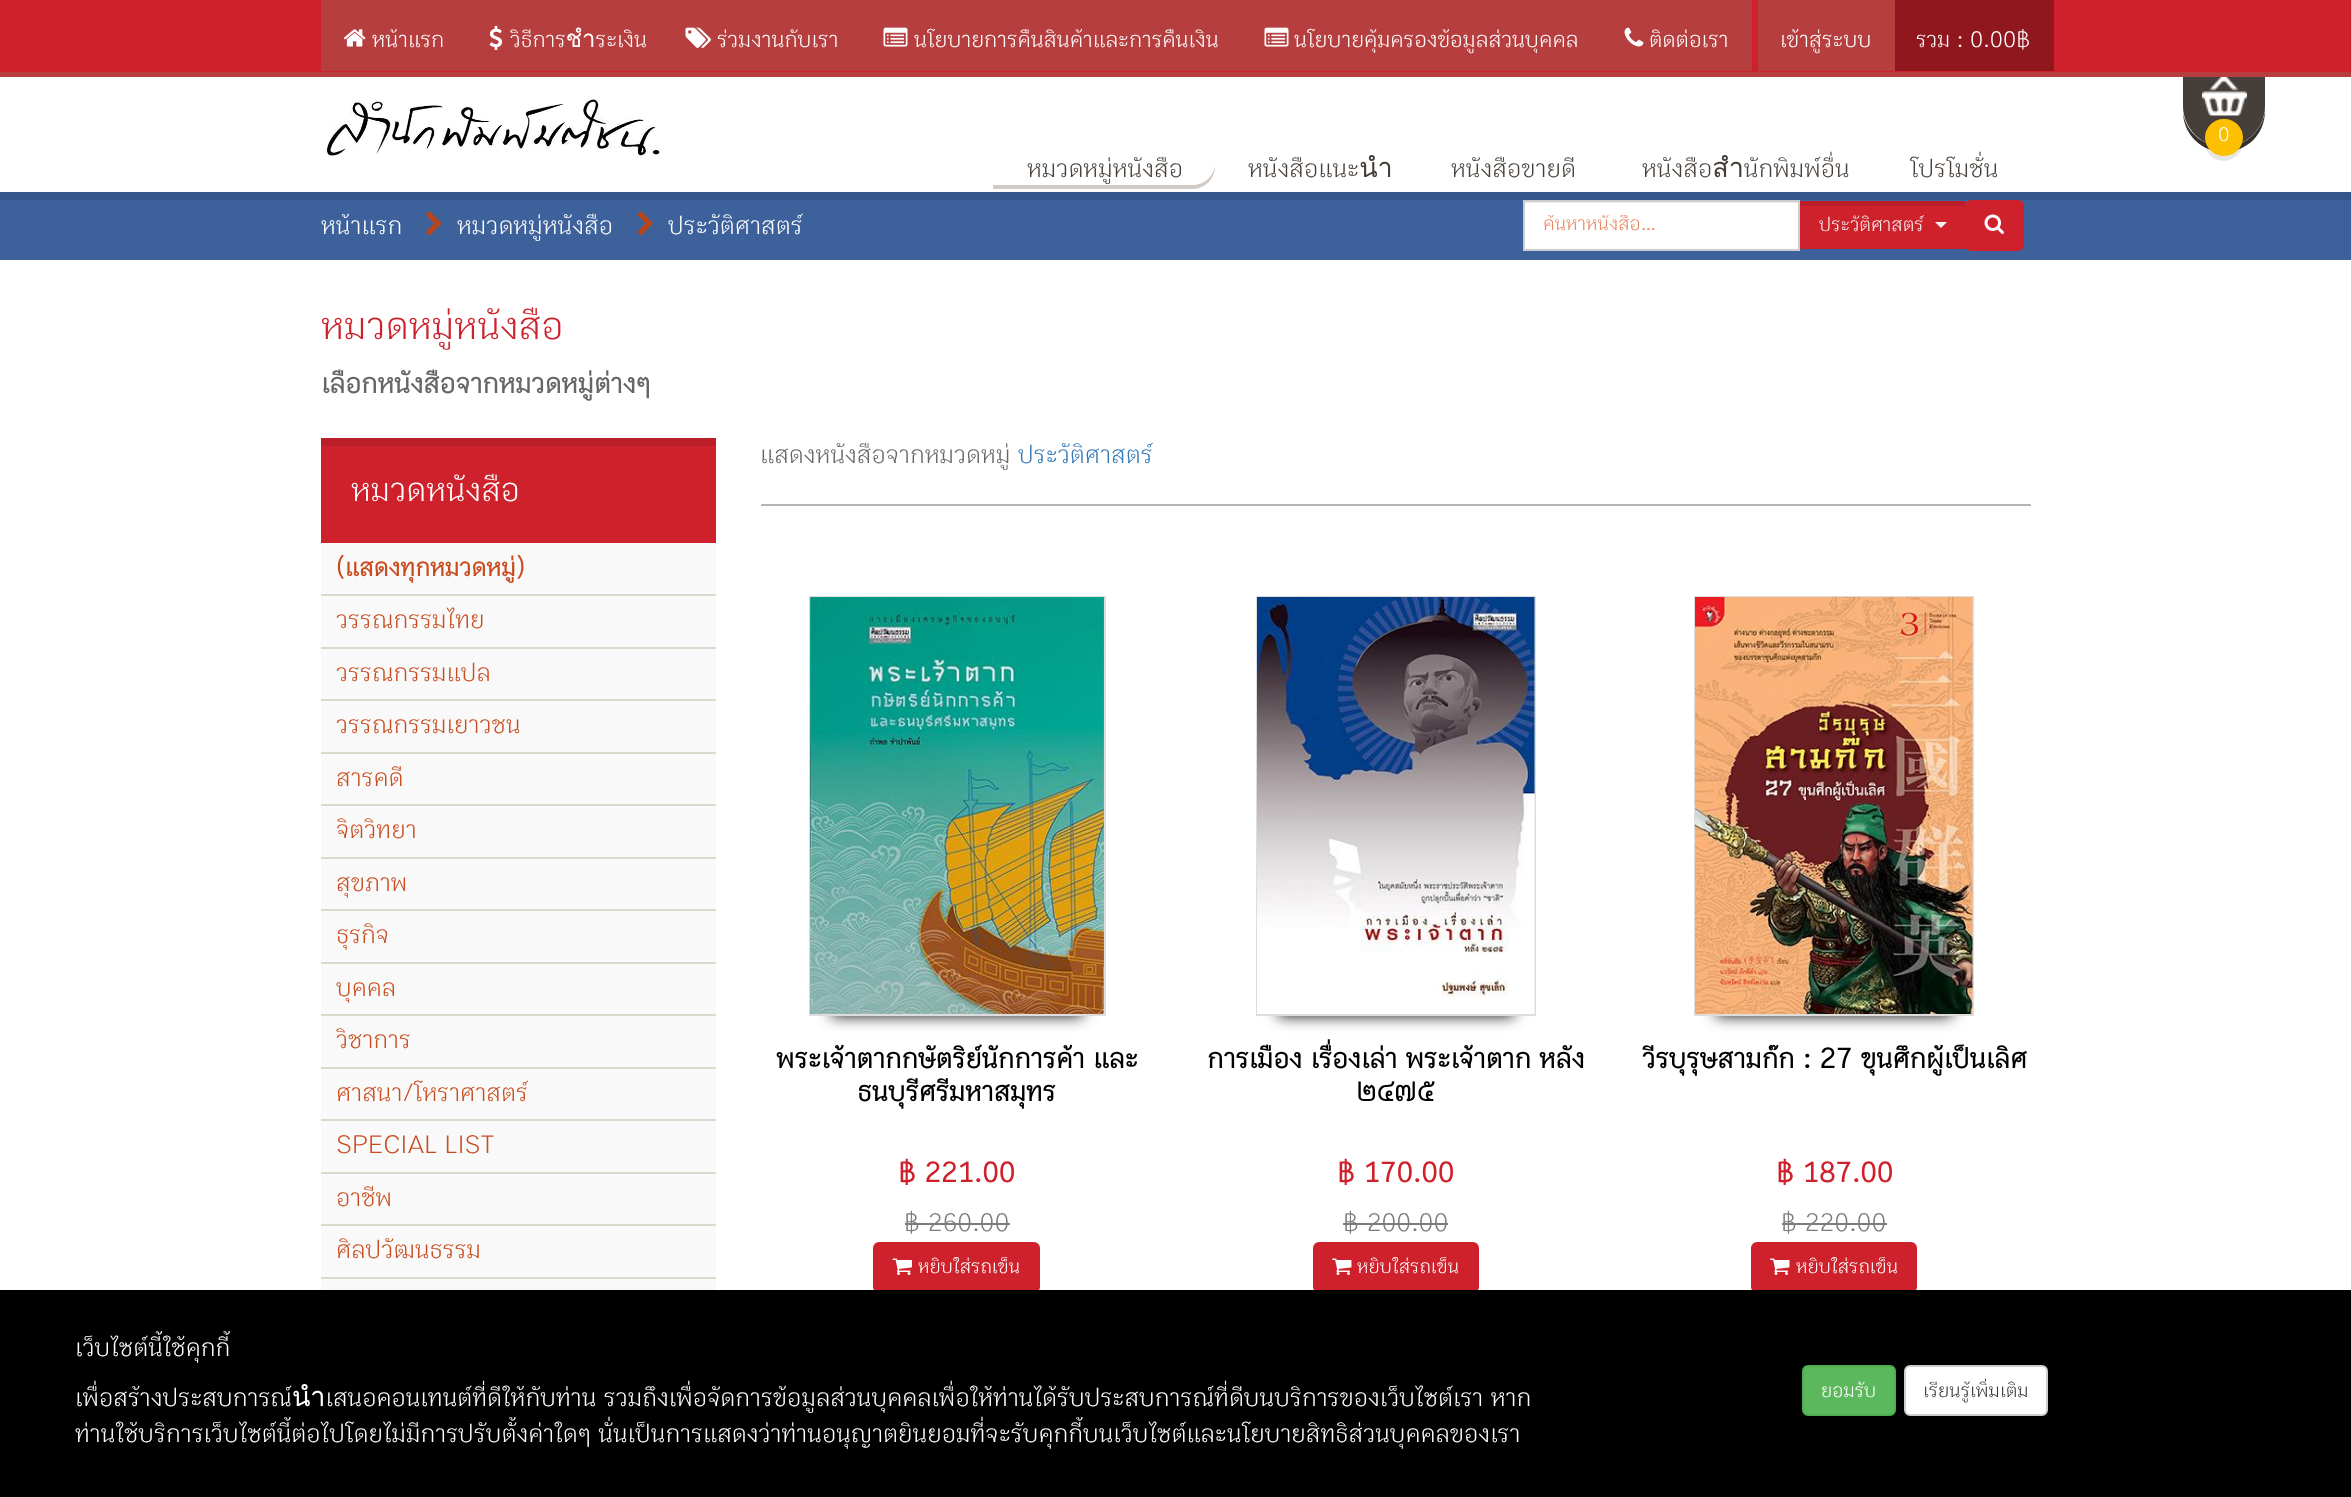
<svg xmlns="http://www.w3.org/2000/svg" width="2351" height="1497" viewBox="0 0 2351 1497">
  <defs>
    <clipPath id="clip1"><rect x="1542" y="215" width="239" height="22"/></clipPath>
    <clipPath id="clip2"><rect x="1637" y="1038" width="394" height="102"/></clipPath>
  </defs>
  <rect width="100%" height="100%" fill="rgb(255,255,255)"/>
  <path d="M2183 113C2184 135 2202 152 2224 152C2247 152 2265 134 2265 111V106C2265 115 2263 122 2258 129C2238 159 2189 149 2183 113Z" fill="rgb(53,48,43)"/>
  <path d="M2183 65H2265V106C2265 128.5 2246.5 147 2224 147C2201.5 147 2183 128.5 2183 106Z" fill="rgb(70,63,57)"/>
  <rect x="0" y="72" width="2351" height="5" fill="rgb(183,62,62)"/>
  <rect x="0" y="0" width="2351" height="72" fill="rgb(207,33,44)"/>
  <rect x="321" y="0" width="1431" height="71" fill="rgb(183,62,62)"/>
  <image x="343" y="29" width="23" height="18" href="pic1.png"/>
  <text x="372" y="47" font-family="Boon" font-size="24" font-weight="300" fill="rgb(255,255,255)">หน้าแรก</text>
  <image x="489" y="25" width="14" height="25" href="pic2.png"/>
  <text x="510" y="47" font-family="Boon" font-size="24" font-weight="300" fill="rgb(255,255,255)">วิธีการชำระเงิน</text>
  <image x="685" y="27" width="26" height="21" href="pic3.png"/>
  <text x="717" y="47" font-family="Boon" font-size="24" font-weight="300" fill="rgb(255,255,255)">ร่วมงานกับเรา</text>
  <image x="883" y="27" width="25" height="20" href="pic4.png"/>
  <text x="914" y="47" font-family="Boon" font-size="24" font-weight="300" fill="rgb(255,255,255)">นโยบายการคืนสินค้าและการคืนเงิน</text>
  <image x="1264" y="27" width="25" height="20" href="pic4.png"/>
  <text x="1294" y="47" font-family="Boon" font-size="24" font-weight="300" fill="rgb(255,255,255)">นโยบายคุ้มครองข้อมูลส่วนบุคคล</text>
  <image x="1624" y="27" width="20" height="20" href="pic5.png"/>
  <text x="1649" y="47" font-family="Boon" font-size="24" font-weight="300" fill="rgb(255,255,255)">ติดต่อเรา</text>
  <rect x="1758" y="0" width="137" height="71" fill="rgb(183,62,62)"/>
  <text x="1780" y="47" font-family="Boon" font-size="24" font-weight="300" fill="rgb(255,255,255)">เข้าสู่ระบบ</text>
  <rect x="1895" y="0" width="159" height="71" fill="rgb(145,23,31)"/>
  <text x="1916" y="47" font-family="Boon" font-size="24" font-weight="300" fill="rgb(255,255,255)">รวม : 0.00฿</text>
  <image x="325" y="99" width="335" height="57" href="pic6.png"/>
  <image x="2202" y="77" width="45" height="39" href="pic7.png"/>
  <path d="M2205 139.5C2204.5 144 2205.5 149 2208 152.5C2220 170 2247 157.5 2242.5 137.5C2242 160.5 2208 162.5 2205 139.5Z" fill="rgba(0,0,0,0.1)"/>
  <rect x="2205" y="119" width="38" height="37" rx="18.5" fill="rgb(252,192,0)"/>
  <text x="2218" y="141" font-family="Boon" font-size="21" font-weight="300" fill="rgb(255,255,255)">0</text>
  <path d="M993 184V189H1192C1205 189 1215 179 1215 166V164C1214 176 1204 184 1192 184Z" fill="rgb(210,203,197)"/>
  <path d="M993 140H1192.5C1205 140 1215 150 1215 162.5C1215 175 1205 185 1192.5 185H993Z" fill="rgb(255,255,255)"/>
  <g font-family="Boon" font-size="27" font-weight="300" fill="rgb(70,63,57)">
    <text x="1027" y="177">หมวดหมู่หนังสือ</text>
    <text x="1248" y="177">หนังสือแนะนำ</text>
    <text x="1451" y="177">หนังสือขายดี</text>
    <text x="1642" y="177">หนังสือสำนักพิมพ์อื่น</text>
    <text x="1910" y="177">โปรโมชั่น</text>
  </g>
  <rect x="0" y="200" width="2351" height="60" fill="rgb(61,97,155)"/>
  <rect x="0" y="192" width="2351" height="8" fill="rgb(55,87,140)"/>
  <text x="321" y="234" font-family="Boon" font-size="27" font-weight="300" fill="rgb(255,255,255)">หน้าแรก</text>
  <image x="426" y="211" width="15" height="25" href="pic8.png"/>
  <text x="457" y="234" font-family="Boon" font-size="27" font-weight="300" fill="rgb(255,255,255)">หมวดหมู่หนังสือ</text>
  <image x="637" y="211" width="16" height="25" href="pic9.png"/>
  <text x="668" y="234" font-family="Boon" font-size="27" font-weight="300" fill="rgb(255,255,255)">ประวัติศาสตร์</text>
  <rect x="1525" y="203" width="273" height="46" fill="rgb(255,255,255)"/>
  <rect x="1524" y="202" width="275" height="1" fill="rgb(236,236,236)"/>
  <rect x="1524" y="201" width="275" height="49" fill="none" stroke="rgb(204,204,204)" stroke-width="2"/>
  <g clip-path="url(#clip1)">
    <text x="1543" y="230" font-family="Boon" font-size="21" font-weight="300" fill="rgb(231,133,97)">ค้นหาหนังสือ...</text>
  </g>
  <rect x="1800" y="206" width="165" height="43" fill="rgb(207,33,44)"/>
  <rect x="1800" y="201" width="165" height="5" fill="rgb(186,30,40)"/>
  <text x="1819" y="231" font-family="Boon" font-size="21" font-weight="300" fill="rgb(243,243,243)">ประวัติศาสตร์</text>
  <path d="M1935 222H1947L1941 228Z" fill="rgb(243,243,243)"/>
  <rect x="1966" y="201" width="57" height="49" rx="5" fill="rgb(207,33,44)" stroke="rgb(207,33,44)" stroke-width="2"/>
  <image x="1984" y="214" width="20" height="20" href="pic10.png"/>
  <text x="321" y="339" font-family="Boon" font-size="42" font-weight="300" fill="rgb(207,33,44)">หมวดหมู่หนังสือ</text>
  <text x="321" y="393" font-family="Boon" font-size="30" font-weight="bold" fill="rgb(102,102,102)">เลือกหนังสือจากหมวดหมู่ต่างๆ</text>
  <rect x="321" y="446" width="395" height="97" fill="rgb(207,33,44)"/>
  <rect x="321" y="438" width="395" height="8" fill="rgb(186,30,40)"/>
  <text x="351" y="501" font-family="Boon" font-size="36" font-weight="300" fill="rgb(255,255,255)">หมวดหนังสือ</text>
  <rect x="321" y="543" width="395" height="747" fill="rgb(249,249,249)"/>
  <rect x="321" y="594" width="395" height="2" fill="rgb(213,220,204)"/>
  <text x="336" y="576" font-family="Boon" font-size="27" font-weight="bold" fill="rgb(201,76,30)">(แสดงทุกหมวดหมู่)</text>
  <rect x="321" y="647" width="395" height="2" fill="rgb(213,220,204)"/>
  <text x="336" y="628" font-family="Boon" font-size="27" font-weight="300" fill="rgb(201,76,30)">วรรณกรรมไทย</text>
  <rect x="321" y="699" width="395" height="2" fill="rgb(213,220,204)"/>
  <text x="336" y="681" font-family="Boon" font-size="27" font-weight="300" fill="rgb(201,76,30)">วรรณกรรมแปล</text>
  <rect x="321" y="752" width="395" height="2" fill="rgb(213,220,204)"/>
  <text x="336" y="733" font-family="Boon" font-size="27" font-weight="300" fill="rgb(201,76,30)">วรรณกรรมเยาวชน</text>
  <rect x="321" y="804" width="395" height="2" fill="rgb(213,220,204)"/>
  <text x="336" y="786" font-family="Boon" font-size="27" font-weight="300" fill="rgb(201,76,30)">สารคดี</text>
  <rect x="321" y="857" width="395" height="2" fill="rgb(213,220,204)"/>
  <text x="336" y="838" font-family="Boon" font-size="27" font-weight="300" fill="rgb(201,76,30)">จิตวิทยา</text>
  <rect x="321" y="909" width="395" height="2" fill="rgb(213,220,204)"/>
  <text x="336" y="891" font-family="Boon" font-size="27" font-weight="300" fill="rgb(201,76,30)">สุขภาพ</text>
  <rect x="321" y="962" width="395" height="2" fill="rgb(213,220,204)"/>
  <text x="336" y="943" font-family="Boon" font-size="27" font-weight="300" fill="rgb(201,76,30)">ธุรกิจ</text>
  <rect x="321" y="1014" width="395" height="2" fill="rgb(213,220,204)"/>
  <text x="336" y="996" font-family="Boon" font-size="27" font-weight="300" fill="rgb(201,76,30)">บุคคล</text>
  <rect x="321" y="1067" width="395" height="2" fill="rgb(213,220,204)"/>
  <text x="336" y="1048" font-family="Boon" font-size="27" font-weight="300" fill="rgb(201,76,30)">วิชาการ</text>
  <rect x="321" y="1119" width="395" height="2" fill="rgb(213,220,204)"/>
  <text x="336" y="1101" font-family="Boon" font-size="27" font-weight="300" fill="rgb(201,76,30)">ศาสนา/โหราศาสตร์</text>
  <rect x="321" y="1172" width="395" height="2" fill="rgb(213,220,204)"/>
  <text x="336" y="1153" font-family="Boon" font-size="27" font-weight="300" fill="rgb(201,76,30)">SPECIAL LIST</text>
  <rect x="321" y="1224" width="395" height="2" fill="rgb(213,220,204)"/>
  <text x="336" y="1206" font-family="Boon" font-size="27" font-weight="300" fill="rgb(201,76,30)">อาชีพ</text>
  <rect x="321" y="1277" width="395" height="2" fill="rgb(213,220,204)"/>
  <text x="336" y="1258" font-family="Boon" font-size="27" font-weight="300" fill="rgb(201,76,30)">ศิลปวัฒนธรรม</text>
  <text x="760" y="463" font-family="Boon" font-size="27" font-weight="300" fill="rgb(102,102,102)">แสดงหนังสือจากหมวดหมู่</text>
  <text x="1018" y="463" font-family="Boon" font-size="27" font-weight="300" fill="rgb(51,122,183)">ประวัติศาสตร์</text>
  <rect x="761" y="504" width="1270" height="2" fill="rgb(181,181,181)"/>
  <rect x="831" y="641" width="252" height="375" fill="rgb(17,17,17)" filter="blur(7.5px)"/>
  <rect x="810" y="597" width="295" height="418" fill="none" stroke="rgb(221,221,221)" stroke-width="2"/>
  <image x="810" y="597" width="294" height="417" href="pic11.png"/>
  <g font-family="Boon" font-size="30" font-weight="bold" fill="rgb(0,0,0)">
    <text x="776" y="1068">พระเจ้าตากกษัตริย์นักการค้า และ</text>
    <text x="857" y="1101">ธนบุรีศรีมหาสมุทร</text>
  </g>
  <text x="898" y="1182" font-family="Boon" font-size="30" font-weight="bold" fill="rgb(207,33,44)">฿ 221.00</text>
  <text x="904" y="1231" font-family="Boon" font-size="27" font-weight="300" fill="rgb(124,124,124)">฿ 260.00</text>
  <rect x="905" y="1223" width="105" height="2" fill="rgb(124,124,124)"/>
  <rect x="874" y="1243" width="165" height="49" rx="5" fill="rgb(207,33,44)" stroke="rgb(207,33,44)" stroke-width="2"/>
  <image x="892" y="1258" width="20" height="17" href="pic12.png"/>
  <text x="918" y="1273" font-family="Boon" font-size="21" font-weight="300" fill="rgb(255,255,255)">หยิบใส่รถเข็น</text>
  <rect x="1278" y="641" width="236" height="375" fill="rgb(17,17,17)" filter="blur(7.5px)"/>
  <rect x="1257" y="597" width="278" height="418" fill="none" stroke="rgb(221,221,221)" stroke-width="2"/>
  <image x="1257" y="597" width="278" height="417" href="pic13.png"/>
  <g font-family="Boon" font-size="30" font-weight="bold" fill="rgb(0,0,0)">
    <text x="1207" y="1068">การเมือง เรื่องเล่า พระเจ้าตาก หลัง</text>
    <text x="1356" y="1101">๒๔๗๕</text>
  </g>
  <text x="1337" y="1182" font-family="Boon" font-size="30" font-weight="bold" fill="rgb(207,33,44)">฿ 170.00</text>
  <text x="1343" y="1231" font-family="Boon" font-size="27" font-weight="300" fill="rgb(124,124,124)">฿ 200.00</text>
  <rect x="1343" y="1223" width="105" height="2" fill="rgb(124,124,124)"/>
  <rect x="1314" y="1243" width="164" height="49" rx="5" fill="rgb(207,33,44)" stroke="rgb(207,33,44)" stroke-width="2"/>
  <image x="1332" y="1258" width="20" height="17" href="pic14.png"/>
  <text x="1357" y="1273" font-family="Boon" font-size="21" font-weight="300" fill="rgb(255,255,255)">หยิบใส่รถเข็น</text>
  <rect x="1716" y="641" width="236" height="375" fill="rgb(17,17,17)" filter="blur(7.5px)"/>
  <rect x="1695" y="597" width="278" height="418" fill="none" stroke="rgb(221,221,221)" stroke-width="2"/>
  <image x="1695" y="597" width="278" height="417" href="pic15.png"/>
  <g clip-path="url(#clip2)">
    <text x="1642" y="1068" font-family="Boon" font-size="30" font-weight="bold" fill="rgb(0,0,0)">วีรบุรุษสามก๊ก : 27 ขุนศึกผู้เป็นเลิศ</text>
  </g>
  <text x="1776" y="1182" font-family="Boon" font-size="30" font-weight="bold" fill="rgb(207,33,44)">฿ 187.00</text>
  <text x="1781" y="1231" font-family="Boon" font-size="27" font-weight="300" fill="rgb(124,124,124)">฿ 220.00</text>
  <rect x="1782" y="1223" width="105" height="2" fill="rgb(124,124,124)"/>
  <rect x="1752" y="1243" width="164" height="49" rx="5" fill="rgb(207,33,44)" stroke="rgb(207,33,44)" stroke-width="2"/>
  <image x="1770" y="1258" width="20" height="17" href="pic14.png"/>
  <text x="1796" y="1273" font-family="Boon" font-size="21" font-weight="300" fill="rgb(255,255,255)">หยิบใส่รถเข็น</text>
  <rect x="0" y="1290" width="2351" height="207" fill="rgb(0,0,0)"/>
  <g font-family="Boon" font-size="27" font-weight="300" fill="rgb(255,255,255)">
    <text>
      <tspan x="75" y="1356">เว็บไซต์นี้ใช้คุกกี้</tspan>
      <tspan x="75" y="1406">เพื่อสร้างประสบการณ์นำเสนอคอนเทนต์ที่ดีให้กับท่าน รวมถึงเพื่อจัดการข้อมูลส่วนบุคคลเพื่อให้ท่านได้รับประสบการณ์ที่ดีบนบริการของเว็บไซต์เรา หาก</tspan>
      <tspan x="75" y="1442">ท่านใช้บริการเว็บไซต์นี้ต่อไปโดยไม่มีการปรับตั้งค่าใดๆ นั่นเป็นการแสดงว่าท่านอนุญาตยินยอมที่จะรับคุกกี้บนเว็บไซต์และนโยบายสิทธิส่วนบุคคลของเรา</tspan>
    </text>
  </g>
  <rect x="1803" y="1366" width="92" height="49" rx="5" fill="rgb(92,184,92)" stroke="rgb(76,174,76)" stroke-width="2"/>
  <text x="1821" y="1397" font-family="Boon" font-size="21" font-weight="300" fill="rgb(255,255,255)">ยอมรับ</text>
  <rect x="1905" y="1366" width="142" height="49" rx="5" fill="rgb(255,255,255)" stroke="rgb(204,204,204)" stroke-width="2"/>
  <text x="1923" y="1397" font-family="Boon" font-size="21" font-weight="300" fill="rgb(51,51,51)">เรียนรู้เพิ่มเติม</text>
</svg>
